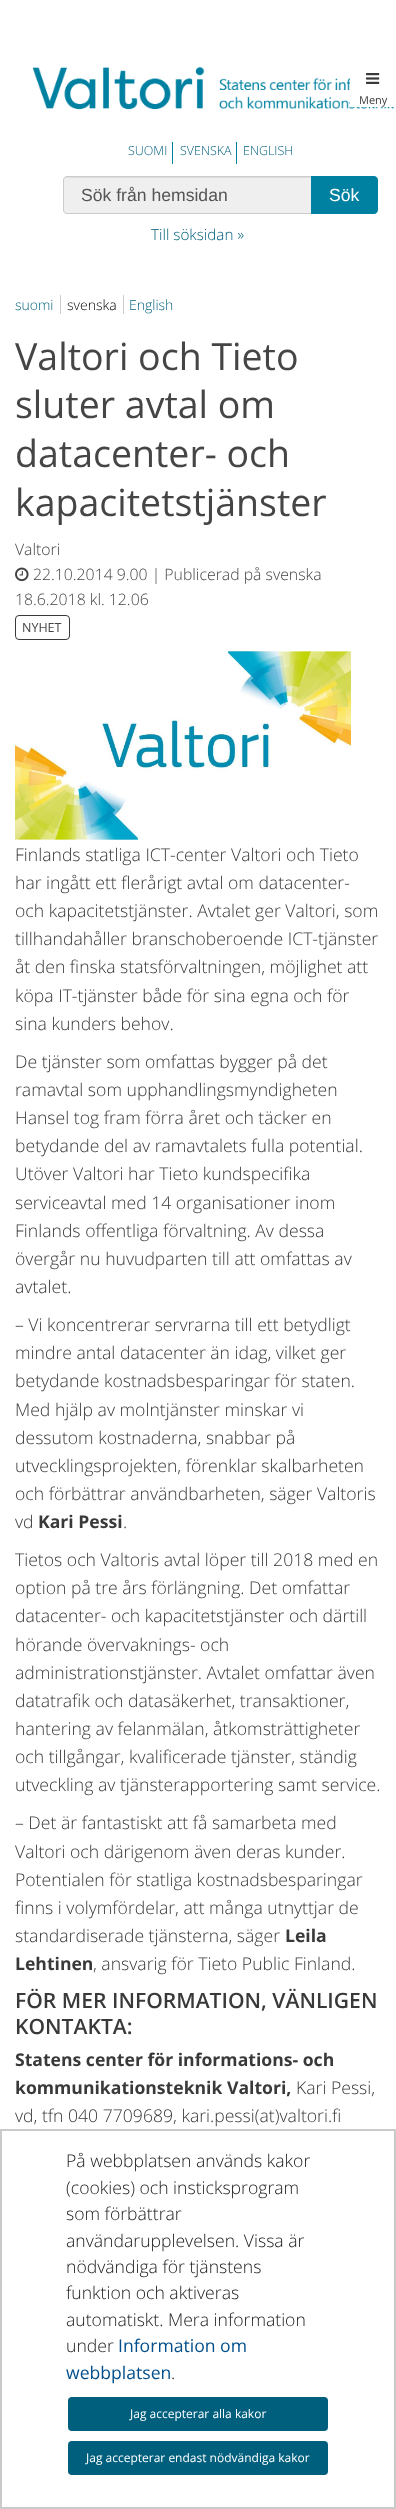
<svg xmlns="http://www.w3.org/2000/svg" width="396" height="2509" viewBox="0 0 396 2509">
  <rect width="100%" height="100%" fill="rgb(255,255,255)"/>
  <image x="32" y="67" width="363" height="43" href="pic2.png"/>
  <rect x="350" y="77" width="45" height="30" fill="rgb(255,255,255)"/>
  <image x="366" y="73" width="14" height="11" href="pic1.png"/>
  <text x="359" y="104" font-family="Open Sans" font-size="11" fill="rgb(57,57,57)">Meny</text>
  <rect x="172" y="142" width="1" height="22" fill="rgb(0,129,161)"/>
  <text x="128" y="155" font-family="Open Sans" font-size="12.5" font-weight="300" fill="rgb(1,95,126)">SUOMI</text>
  <rect x="236" y="142" width="1" height="22" fill="rgb(0,129,161)"/>
  <g font-family="Open Sans" font-size="12.5" font-weight="300" fill="rgb(1,95,126)">
    <text x="180" y="155">SVENSKA</text>
    <text x="243" y="155">ENGLISH</text>
  </g>
  <path d="M67 176H313V214H67C65 214 63 212 63 210V180C63 178 65 176 67 176Z" fill="rgb(239,239,239)"/>
  <path d="M67 178H312V177H67C65 177 64 179 64 181C64 179 65 178 67 178Z" fill="rgb(221,221,221)"/>
  <path d="M67 176.5H312.5V213.5H67C65 213.5 63.5 212 63.5 210V180C63.5 178 65 176.5 67 176.5Z" fill="none" stroke="rgb(204,204,204)"/>
  <text x="81" y="201" font-family="Liberation Sans" font-size="17.6" fill="rgb(85,85,85)">Sök från hemsidan</text>
  <path d="M311 176H374C376 176 378 178 378 180V210C378 212 376 214 374 214H311Z" fill="rgb(0,129,161)"/>
  <text x="329" y="201" font-family="Liberation Sans" font-size="17.6" fill="rgb(255,255,255)">Sök</text>
  <text x="151" y="240" font-family="Open Sans" font-size="15.25" font-weight="300" fill="rgb(1,95,126)">Till söksidan »</text>
  <text x="15" y="310" font-family="Open Sans" font-size="14" font-weight="300" fill="rgb(1,95,126)">suomi</text>
  <rect x="60" y="295" width="1" height="19" fill="rgb(204,204,204)"/>
  <text x="67" y="310" font-family="Open Sans" font-size="14" font-weight="300" fill="rgb(0,0,0)">svenska</text>
  <rect x="123" y="295" width="1" height="19" fill="rgb(204,204,204)"/>
  <text x="129" y="310" font-family="Open Sans" font-size="14" font-weight="300" fill="rgb(1,95,126)">English</text>
  <g font-family="Open Sans" font-size="37.5" fill="rgb(69,69,69)">
    <text>
      <tspan x="15" y="370">Valtori och Tieto</tspan>
      <tspan x="15" y="418">sluter avtal om</tspan>
      <tspan x="15" y="467">datacenter- och</tspan>
      <tspan x="15" y="516">kapacitetstjänster</tspan>
    </text>
  </g>
  <text x="15" y="555" font-family="Open Sans" font-size="15.8" font-weight="300" fill="rgb(69,69,69)">Valtori</text>
  <image x="15" y="567" width="14" height="15" href="pic3.png"/>
  <g font-family="Open Sans" font-size="15.8" font-weight="300" fill="rgb(69,69,69)">
    <text x="33" y="580">22.10.2014 9.00 | Publicerad på svenska</text>
    <text x="15" y="605">18.6.2018 kl. 12.06</text>
  </g>
  <rect x="15.5" y="615.5" width="54" height="24" rx="3.5" fill="none" stroke="rgb(57,57,57)"/>
  <text x="22" y="632" font-family="Open Sans" font-size="12.5" fill="rgb(69,69,69)">NYHET</text>
  <image x="15" y="651" width="336" height="189" href="pic4.png"/>
  <g font-family="Open Sans" font-size="17.6" font-weight="300" fill="rgb(57,57,57)">
    <text>
      <tspan x="15" y="861">Finlands statliga ICT-center Valtori och Tieto</tspan>
      <tspan x="15" y="889">har ingått ett flerårigt avtal om datacenter-</tspan>
      <tspan x="15" y="917">och kapacitetstjänster. Avtalet ger Valtori, som</tspan>
      <tspan x="15" y="945">tillhandahåller branschoberoende ICT-tjänster</tspan>
      <tspan x="15" y="973">åt den finska statsförvaltningen, möjlighet att</tspan>
      <tspan x="15" y="1002">köpa IT-tjänster både för sina egna och för</tspan>
      <tspan x="15" y="1030">sina kunders behov.</tspan>
    </text>
    <text>
      <tspan x="15" y="1068">De tjänster som omfattas bygger på det</tspan>
      <tspan x="15" y="1096">ramavtal som upphandlingsmyndigheten</tspan>
      <tspan x="15" y="1124">Hansel tog fram förra året och täcker en</tspan>
      <tspan x="15" y="1152">betydande del av ramavtalets fulla potential.</tspan>
      <tspan x="15" y="1180">Utöver Valtori har Tieto kundspecifika</tspan>
      <tspan x="15" y="1209">serviceavtal med 14 organisationer inom</tspan>
      <tspan x="15" y="1237">Finlands offentliga förvaltning. Av dessa</tspan>
      <tspan x="15" y="1265">övergår nu huvudparten till att omfattas av</tspan>
      <tspan x="15" y="1293">avtalet.</tspan>
    </text>
    <text>
      <tspan x="15" y="1331">– Vi koncentrerar servrarna till ett betydligt</tspan>
      <tspan x="15" y="1359">mindre antal datacenter än idag, vilket ger</tspan>
      <tspan x="15" y="1387">betydande kostnadsbesparingar för staten.</tspan>
      <tspan x="15" y="1416">Med hjälp av molntjänster minskar vi</tspan>
      <tspan x="15" y="1444">dessutom kostnaderna, snabbar på</tspan>
      <tspan x="15" y="1472">utvecklingsprojekten, förenklar skalbarheten</tspan>
      <tspan x="15" y="1500">och förbättrar användbarheten, säger Valtoris</tspan>
      <tspan x="15" y="1528">vd</tspan>
    </text>
  </g>
  <text x="38" y="1528" font-family="Open Sans" font-size="17.6" font-weight="bold" fill="rgb(57,57,57)">Kari Pessi</text>
  <g font-family="Open Sans" font-size="17.6" font-weight="300" fill="rgb(57,57,57)">
    <text x="123" y="1528">.</text>
    <text>
      <tspan x="15" y="1566">Tietos och Valtoris avtal löper till 2018 med en</tspan>
      <tspan x="15" y="1594">option på tre års förlängning. Det omfattar</tspan>
      <tspan x="15" y="1622">datacenter- och kapacitetstjänster och därtill</tspan>
      <tspan x="15" y="1651">hörande övervaknings- och</tspan>
      <tspan x="15" y="1679">administrationstjänster. Avtalet omfattar även</tspan>
      <tspan x="15" y="1707">datatrafik och datasäkerhet, transaktioner,</tspan>
      <tspan x="15" y="1735">hantering av felanmälan, åtkomsträttigheter</tspan>
      <tspan x="15" y="1763">och tillgångar, kvalificerade tjänster, ständig</tspan>
      <tspan x="15" y="1791">utveckling av tjänsterapportering samt service.</tspan>
    </text>
    <text>
      <tspan x="15" y="1829">– Det är fantastiskt att få samarbeta med</tspan>
      <tspan x="15" y="1858">Valtori och därigenom även deras kunder.</tspan>
      <tspan x="15" y="1886">Potentialen för statliga kostnadsbesparingar</tspan>
      <tspan x="15" y="1914">finns i volymfördelar, att många utnyttjar de</tspan>
      <tspan x="15" y="1942">standardiserade tjänsterna, säger</tspan>
    </text>
  </g>
  <g font-family="Open Sans" font-size="17.6" font-weight="bold" fill="rgb(57,57,57)">
    <text x="285" y="1942">Leila</text>
    <text x="15" y="1970">Lehtinen</text>
  </g>
  <text x="93" y="1970" font-family="Open Sans" font-size="17.6" font-weight="300" fill="rgb(57,57,57)">, ansvarig för Tieto Public Finland.</text>
  <g font-family="Open Sans" font-size="21.1" font-weight="600" fill="rgb(57,57,57)">
    <text>
      <tspan x="15" y="2008">FÖR MER INFORMATION, VÄNLIGEN</tspan>
      <tspan x="15" y="2034">KONTAKTA:</tspan>
    </text>
  </g>
  <g font-family="Open Sans" font-size="17.6" font-weight="bold" fill="rgb(57,57,57)">
    <text>
      <tspan x="15" y="2066">Statens center för informations- och</tspan>
      <tspan x="15" y="2094">kommunikationsteknik Valtori,</tspan>
    </text>
  </g>
  <g font-family="Open Sans" font-size="17.6" font-weight="300" fill="rgb(57,57,57)">
    <text x="296" y="2094">Kari Pessi,</text>
    <text x="15" y="2122">vd, tfn 040 7709689, kari.pessi(at)valtori.fi</text>
  </g>
  <rect x="1" y="2130" width="394" height="378" fill="none" stroke="rgb(202,202,202)" stroke-width="2"/>
  <g font-family="Open Sans" font-size="17.6" font-weight="300" fill="rgb(33,33,33)">
    <text>
      <tspan x="66" y="2167">På webbplatsen används kakor</tspan>
      <tspan x="66" y="2194">(cookies) och insticksprogram</tspan>
      <tspan x="66" y="2220">som förbättrar</tspan>
      <tspan x="66" y="2247">användarupplevelsen. Vissa är</tspan>
      <tspan x="66" y="2273">nödvändiga för tjänstens</tspan>
      <tspan x="66" y="2299">funktion och aktiveras</tspan>
      <tspan x="66" y="2326">automatiskt. Mera information</tspan>
      <tspan x="66" y="2352">under</tspan>
    </text>
  </g>
  <g font-family="Open Sans" font-size="17.6" fill="rgb(0,79,140)">
    <text x="118" y="2352">Information om</text>
    <text x="66" y="2379">webbplatsen</text>
  </g>
  <text x="171" y="2379" font-family="Open Sans" font-size="17.6" font-weight="300" fill="rgb(33,33,33)">.</text>
  <rect x="68" y="2397" width="260" height="34" rx="4" fill="rgb(1,95,126)"/>
  <text x="130" y="2418" font-family="Open Sans" font-size="12" fill="rgb(255,255,255)">Jag accepterar alla kakor</text>
  <rect x="68" y="2441" width="260" height="34" rx="4" fill="rgb(1,95,126)"/>
  <text x="86" y="2462" font-family="Open Sans" font-size="12" fill="rgb(255,255,255)">Jag accepterar endast nödvändiga kakor</text>
</svg>
